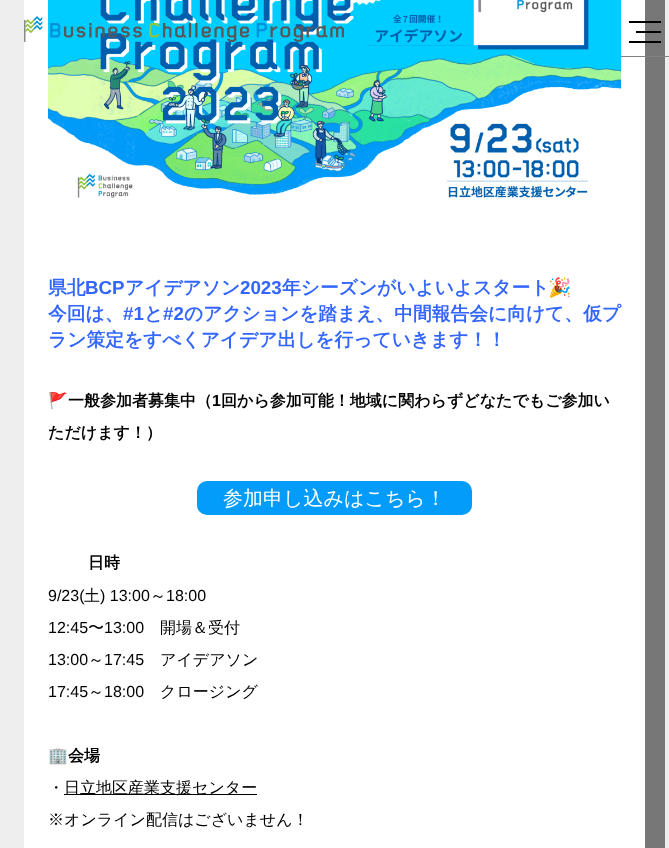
<svg xmlns="http://www.w3.org/2000/svg" width="669" height="848" viewBox="0 0 669 848">
  <rect width="100%" height="100%" fill="rgb(238,238,238)"/>
  <rect x="24" y="0" width="621" height="848" fill="rgb(255,255,255)"/>
  <image x="48" y="0" width="573" height="198" href="pic2.png"/>
  <image x="24" y="16" width="320" height="26" href="pic1.png"/>
  <path d="M44 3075V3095H665V-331H645V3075Z" fill="rgb(119,119,119)"/>
  <rect x="621" y="56" width="48" height="1" fill="rgb(128,128,128)"/>
  <rect x="629" y="21" width="32" height="2" fill="rgb(0,0,0)"/>
  <rect x="636" y="31" width="25" height="2" fill="rgb(0,0,0)"/>
  <rect x="629" y="41" width="32" height="2" fill="rgb(0,0,0)"/>
  <text x="48" y="294" font-family="WenQuanYi Zen Hei" font-size="18.75" font-weight="bold" fill="rgb(51,102,255)">県北</text>
  <text x="85" y="294" font-family="Liberation Sans" font-size="18.75" font-weight="bold" fill="rgb(51,102,255)">BCP</text>
  <text x="125" y="294" font-family="WenQuanYi Zen Hei" font-size="18.75" font-weight="bold" fill="rgb(51,102,255)">アイデアソン</text>
  <text x="240" y="294" font-family="Liberation Sans" font-size="18.75" font-weight="bold" fill="rgb(51,102,255)">2023</text>
  <text x="282" y="294" font-family="WenQuanYi Zen Hei" font-size="18.75" font-weight="bold" fill="rgb(51,102,255)">年シーズンがいよいよスタート</text>
  <text x="548" y="294" font-family="Noto Color Emoji" font-size="18.75" font-weight="bold" fill="rgb(51,102,255)">🎉</text>
  <text x="48" y="320" font-family="WenQuanYi Zen Hei" font-size="18.75" font-weight="bold" fill="rgb(51,102,255)">今回は、</text>
  <text x="123" y="320" font-family="Liberation Sans" font-size="18.75" font-weight="bold" fill="rgb(51,102,255)">#1</text>
  <text x="144" y="320" font-family="WenQuanYi Zen Hei" font-size="18.75" font-weight="bold" fill="rgb(51,102,255)">と</text>
  <text x="163" y="320" font-family="Liberation Sans" font-size="18.75" font-weight="bold" fill="rgb(51,102,255)">#2</text>
  <g font-family="WenQuanYi Zen Hei" font-size="18.75" font-weight="bold" fill="rgb(51,102,255)">
    <text x="184" y="320">のアクションを踏まえ、中間報告会に向けて、仮プ</text>
    <text x="48" y="346">ラン策定をすべくアイデア出しを行っていきます！！</text>
  </g>
  <text x="48" y="406" font-family="Noto Color Emoji" font-size="16" font-weight="bold" fill="rgb(0,0,0)">🚩</text>
  <text x="68" y="406" font-family="WenQuanYi Zen Hei" font-size="16" font-weight="bold" fill="rgb(0,0,0)">一般参加者募集中（</text>
  <text x="212" y="406" font-family="Liberation Sans" font-size="16" font-weight="bold" fill="rgb(0,0,0)">1</text>
  <g font-family="WenQuanYi Zen Hei" font-size="16" font-weight="bold" fill="rgb(0,0,0)">
    <text x="221" y="406">回から参加可能！地域に関わらずどなたでもご参加い</text>
    <text x="48" y="438">ただけます！）</text>
  </g>
  <rect x="197" y="481" width="275" height="34" rx="10" fill="rgb(3,156,251)"/>
  <text x="223" y="505" font-family="WenQuanYi Zen Hei" font-size="20" font-weight="500" fill="rgb(255,255,255)">参加申し込みはこちら！</text>
  <text x="88" y="568" font-family="WenQuanYi Zen Hei" font-size="16" font-weight="bold" fill="rgb(0,0,0)">日時</text>
  <text x="48" y="601" font-family="Liberation Sans" font-size="16" fill="rgb(0,0,0)">9/23(</text>
  <text x="84" y="601" font-family="WenQuanYi Zen Hei" font-size="16" font-weight="500" fill="rgb(0,0,0)">土</text>
  <text x="100" y="601" font-family="Liberation Sans" font-size="16" fill="rgb(0,0,0)">) 13:00</text>
  <text x="150" y="601" font-family="WenQuanYi Zen Hei" font-size="16" font-weight="500" fill="rgb(0,0,0)">～</text>
  <g font-family="Liberation Sans" font-size="16" fill="rgb(0,0,0)">
    <text x="166" y="601">18:00</text>
    <text x="48" y="633">12:45</text>
  </g>
  <text x="88" y="633" font-family="WenQuanYi Zen Hei" font-size="16" font-weight="500" fill="rgb(0,0,0)">〜</text>
  <text x="104" y="633" font-family="Liberation Sans" font-size="16" fill="rgb(0,0,0)">13:00</text>
  <text x="160" y="633" font-family="WenQuanYi Zen Hei" font-size="16" font-weight="500" fill="rgb(0,0,0)">開場＆受付</text>
  <text x="48" y="665" font-family="Liberation Sans" font-size="16" fill="rgb(0,0,0)">13:00</text>
  <text x="88" y="665" font-family="WenQuanYi Zen Hei" font-size="16" font-weight="500" fill="rgb(0,0,0)">～</text>
  <text x="104" y="665" font-family="Liberation Sans" font-size="16" fill="rgb(0,0,0)">17:45</text>
  <text x="160" y="665" font-family="WenQuanYi Zen Hei" font-size="16" font-weight="500" fill="rgb(0,0,0)">アイデアソン</text>
  <text x="48" y="697" font-family="Liberation Sans" font-size="16" fill="rgb(0,0,0)">17:45</text>
  <text x="88" y="697" font-family="WenQuanYi Zen Hei" font-size="16" font-weight="500" fill="rgb(0,0,0)">～</text>
  <text x="104" y="697" font-family="Liberation Sans" font-size="16" fill="rgb(0,0,0)">18:00</text>
  <text x="160" y="697" font-family="WenQuanYi Zen Hei" font-size="16" font-weight="500" fill="rgb(0,0,0)">クロージング</text>
  <text x="48" y="761" font-family="Noto Color Emoji" font-size="16" font-weight="bold" fill="rgb(0,0,0)">🏢</text>
  <text x="68" y="761" font-family="WenQuanYi Zen Hei" font-size="16" font-weight="bold" fill="rgb(0,0,0)">会場</text>
  <text x="48" y="793" font-family="WenQuanYi Zen Hei" font-size="16" font-weight="500" fill="rgb(0,0,0)">・</text>
  <rect x="64" y="794" width="193" height="1" fill="rgb(0,0,0)"/>
  <g font-family="WenQuanYi Zen Hei" font-size="16" font-weight="500" fill="rgb(0,0,0)">
    <text x="64" y="793">日立地区産業支援センター</text>
    <text x="48" y="825">※オンライン配信はございません！</text>
  </g>
</svg>
